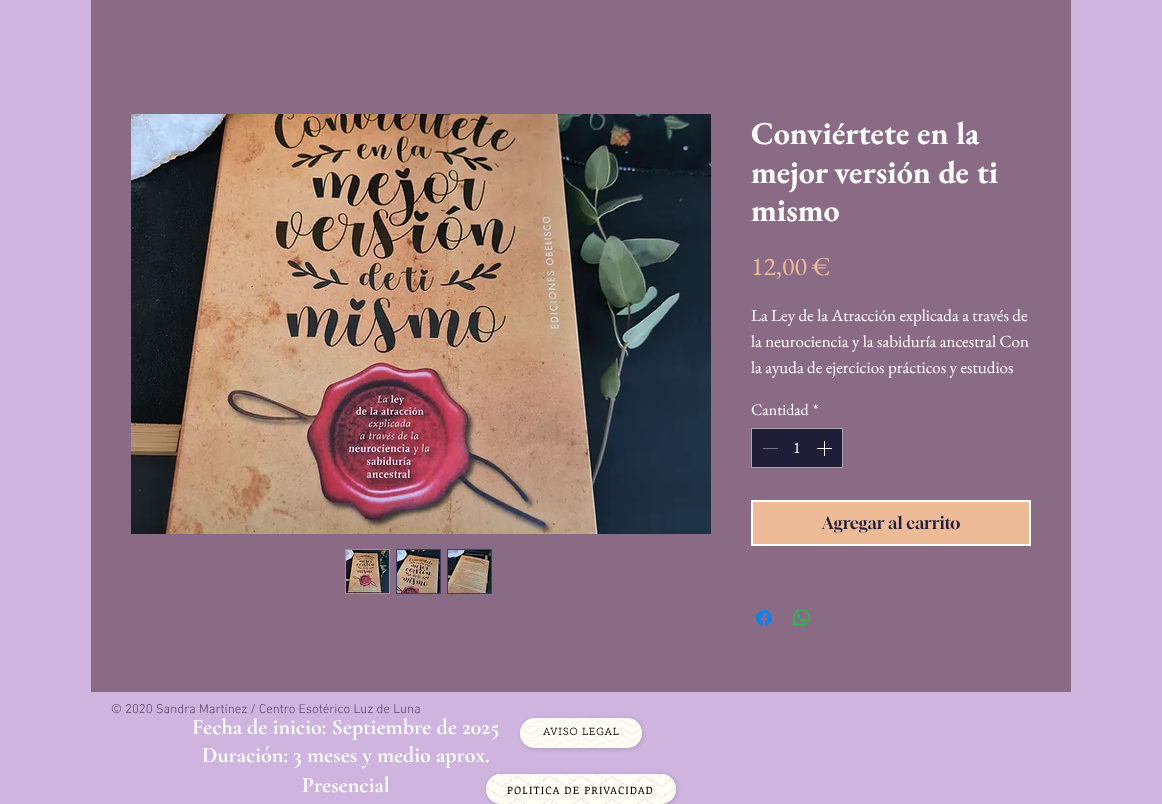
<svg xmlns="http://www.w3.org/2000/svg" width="1162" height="804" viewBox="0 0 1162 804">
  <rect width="100%" height="100%" fill="rgb(206,180,223)"/>
  <rect x="91" y="0" width="980" height="692" fill="rgb(137,107,134)"/>
  <image x="131" y="114" width="580" height="420" href="pic1.png"/>
  <rect x="345.5" y="549.5" width="44" height="44" fill="none" stroke="rgb(175,145,125)"/>
  <image x="346" y="550" width="43" height="43" href="pic2.png"/>
  <rect x="396" y="549" width="45" height="45" fill="rgb(65,60,110)"/>
  <image x="397" y="550" width="43" height="43" href="pic3.png"/>
  <rect x="447" y="549" width="45" height="45" fill="rgb(65,60,110)"/>
  <image x="448" y="550" width="43" height="43" href="pic4.png"/>
  <g font-family="EB Garamond" font-size="32" font-weight="bold" fill="rgb(255,255,255)">
    <text>
      <tspan x="751" y="144">Conviértete en la</tspan>
      <tspan x="751" y="183">mejor versión de ti</tspan>
      <tspan x="751" y="221">mismo</tspan>
    </text>
  </g>
  <text x="751" y="275" font-family="EB Garamond" font-size="26" fill="rgb(238,187,153)">12,00 €</text>
  <g font-family="EB Garamond" font-size="17" fill="rgb(255,255,255)">
    <text>
      <tspan x="751" y="321">La Ley de la Atracción explicada a través de</tspan>
      <tspan x="751" y="347">la neurociencia y la sabiduría ancestral Con</tspan>
      <tspan x="751" y="373">la ayuda de ejercicios prácticos y estudios</tspan>
    </text>
  </g>
  <g font-family="EB Garamond" font-size="16" fill="rgb(255,255,255)">
    <text x="751" y="415">Cantidad</text>
    <text x="813" y="415">*</text>
  </g>
  <rect x="751.5" y="428.5" width="91" height="39" fill="rgb(32,30,55)" stroke="rgb(166,165,175)"/>
  <rect x="763" y="448" width="15" height="1" fill="rgb(116,115,127)"/>
  <text x="793" y="453" font-family="EB Garamond" font-size="16" fill="rgb(255,255,255)">1</text>
  <image x="817" y="441" width="15" height="15" href="pic5.png"/>
  <rect x="752" y="501" width="278" height="44" fill="rgb(238,187,153)" stroke="rgb(255,255,255)" stroke-width="2"/>
  <text x="822" y="529" font-family="Gloock" font-size="17" fill="rgb(32,30,55)">Agregar al carrito</text>
  <image x="756" y="610" width="16" height="16" href="pic6.png"/>
  <image x="793" y="609" width="17" height="17" href="pic7.png"/>
  <text x="111" y="713" font-family="'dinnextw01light'" font-size="13" font-weight="300" fill="rgb(91,70,101)">© 2020 Sandra Martínez / Centro Esotérico Luz de Luna</text>
  <text x="192" y="734" font-family="Cormorant Garamond" font-size="22" font-weight="bold" fill="rgb(255,255,255)">Fecha de inicio: Septiembre de 2025</text>
  <rect x="487" y="775" width="190" height="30" rx="15" fill="rgba(0,0,0,0.15)" filter="blur(2px)"/>
  <g font-family="Cormorant Garamond" font-size="22" font-weight="bold" fill="rgb(255,255,255)">
    <text x="202" y="762">Duración: 3 meses y medio aprox.</text>
    <text x="302" y="792">Presencial</text>
  </g>
  <rect x="521" y="719" width="122" height="30" rx="15" fill="rgba(0,0,0,0.15)" filter="blur(2px)"/>
  <rect x="520" y="718" width="122" height="30" rx="15" fill="rgb(255,253,244)"/>
  <image x="520" y="718" width="122" height="30" href="pic8.png"/>
  <text x="543" y="735" font-family="'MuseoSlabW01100'" font-size="10" font-weight="bold" letter-spacing="1" fill="rgb(0,0,0)">AVISO LEGAL</text>
  <rect x="486" y="774" width="190" height="30" rx="15" fill="rgb(255,253,244)"/>
  <image x="486" y="774" width="190" height="30" href="pic9.png"/>
  <text x="507" y="794" font-family="Noticia Text" font-size="11" letter-spacing="1.1" fill="rgb(0,0,0)">POLITICA DE PRIVACIDAD</text>
</svg>
